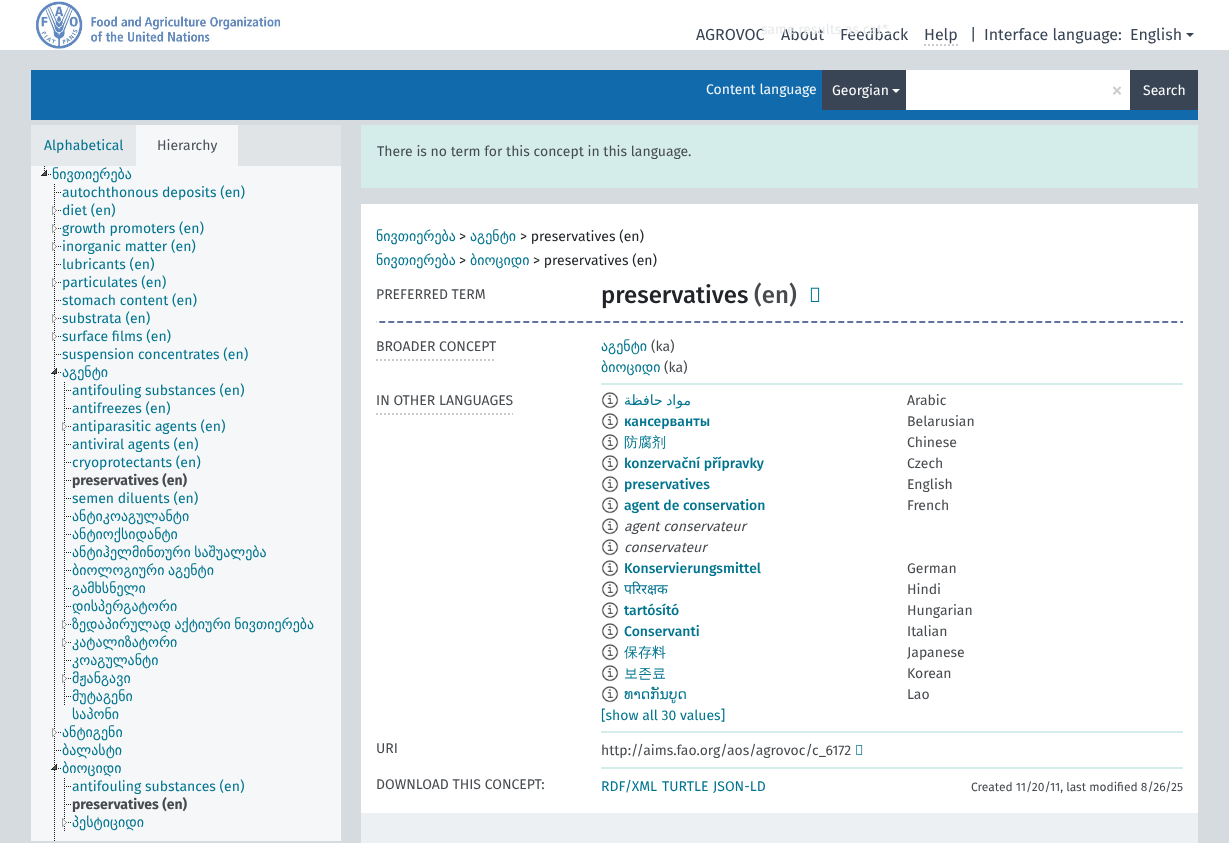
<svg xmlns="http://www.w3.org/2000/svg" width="1229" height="843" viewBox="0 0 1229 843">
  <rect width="100%" height="100%" fill="rgb(213,219,222)"/>
  <rect x="0" y="0" width="1229" height="50" fill="rgb(255,255,255)"/>
  <image x="35" y="1" width="246" height="49" href="pic1.png"/>
  <g font-family="Fira Sans" font-size="16" fill="rgb(57,69,84)">
    <text x="696" y="40">AGROVOC</text>
    <text x="781" y="40">About</text>
    <text x="840" y="40">Feedback</text>
  </g>
  <text x="761" y="34" font-family="Fira Sans" font-size="14" fill="rgb(231,233,235)">same results as cat*.</text>
  <text x="924" y="40" font-family="Fira Sans" font-size="16" fill="rgb(57,69,84)">Help</text>
  <path d="M924 45H958" fill="none" stroke="rgb(204,204,204)" stroke-width="2" stroke-dasharray="2 2"/>
  <g font-family="Fira Sans" font-size="16" fill="rgb(57,69,84)">
    <text x="970" y="40">|</text>
    <text x="984" y="40">Interface language:</text>
    <text x="1130" y="40">English</text>
  </g>
  <path d="M1186 33H1194L1190 37Z" fill="rgb(57,69,84)"/>
  <rect x="31" y="70" width="1167" height="50" fill="rgb(17,106,171)"/>
  <text x="706" y="94" font-family="Fira Sans" font-size="14" fill="rgb(243,248,251)">Content language</text>
  <rect x="822" y="70" width="84" height="40" fill="rgb(57,69,84)"/>
  <text x="832" y="95" font-family="Fira Sans" font-size="14" fill="rgb(255,255,255)">Georgian</text>
  <path d="M892 89H900L896 93Z" fill="rgb(255,255,255)"/>
  <rect x="906" y="70" width="224" height="40" fill="rgb(255,255,255)"/>
  <text x="1111" y="98" font-family="Fira Sans" font-size="24" fill="rgb(204,204,204)">×</text>
  <rect x="1130" y="70" width="68" height="40" fill="rgb(57,69,84)"/>
  <text x="1143" y="95" font-family="Fira Sans" font-size="14" fill="rgb(255,255,255)">Search</text>
  <rect x="238" y="125" width="103" height="41" fill="rgb(224,228,231)"/>
  <rect x="31" y="125" width="105" height="41" fill="rgb(230,233,235)"/>
  <text x="44" y="150" font-family="Fira Sans" font-size="14" fill="rgb(0,116,143)">Alphabetical</text>
  <rect x="136" y="125" width="102" height="41" fill="rgb(246,247,248)"/>
  <text x="157" y="150" font-family="Fira Sans" font-size="14" fill="rgb(73,80,87)">Hierarchy</text>
  <rect x="31" y="166" width="310" height="675" fill="rgb(246,247,248)"/>
  <image x="41" y="166" width="10" height="10" href="pic2.png"/>
  <text x="52" y="179" font-family="DejaVu Sans" font-size="14" fill="rgb(0,116,143)">ნივთიერება</text>
  <image x="54" y="184" width="1" height="17" href="pic3.png"/>
  <image x="56" y="192" width="5" height="1" href="pic4.png"/>
  <text x="62" y="197" font-family="Fira Sans" font-size="14" fill="rgb(0,116,143)">autochthonous deposits (en)</text>
  <image x="54" y="202" width="1" height="17" href="pic3.png"/>
  <image x="52" y="206" width="9" height="9" href="pic5.png"/>
  <text x="62" y="215" font-family="Fira Sans" font-size="14" fill="rgb(0,116,143)">diet (en)</text>
  <image x="54" y="220" width="1" height="17" href="pic3.png"/>
  <image x="52" y="224" width="9" height="9" href="pic5.png"/>
  <text x="62" y="233" font-family="Fira Sans" font-size="14" fill="rgb(0,116,143)">growth promoters (en)</text>
  <image x="54" y="238" width="1" height="17" href="pic3.png"/>
  <image x="52" y="242" width="9" height="9" href="pic5.png"/>
  <text x="62" y="251" font-family="Fira Sans" font-size="14" fill="rgb(0,116,143)">inorganic matter (en)</text>
  <image x="54" y="256" width="1" height="17" href="pic3.png"/>
  <image x="56" y="264" width="5" height="1" href="pic4.png"/>
  <text x="62" y="269" font-family="Fira Sans" font-size="14" fill="rgb(0,116,143)">lubricants (en)</text>
  <image x="54" y="274" width="1" height="17" href="pic3.png"/>
  <image x="52" y="278" width="9" height="9" href="pic5.png"/>
  <text x="62" y="287" font-family="Fira Sans" font-size="14" fill="rgb(0,116,143)">particulates (en)</text>
  <image x="54" y="292" width="1" height="17" href="pic3.png"/>
  <image x="56" y="300" width="5" height="1" href="pic4.png"/>
  <text x="62" y="305" font-family="Fira Sans" font-size="14" fill="rgb(0,116,143)">stomach content (en)</text>
  <image x="54" y="310" width="1" height="17" href="pic3.png"/>
  <image x="52" y="314" width="9" height="9" href="pic5.png"/>
  <text x="62" y="323" font-family="Fira Sans" font-size="14" fill="rgb(0,116,143)">substrata (en)</text>
  <image x="54" y="328" width="1" height="17" href="pic3.png"/>
  <image x="52" y="332" width="9" height="9" href="pic5.png"/>
  <text x="62" y="341" font-family="Fira Sans" font-size="14" fill="rgb(0,116,143)">surface films (en)</text>
  <image x="54" y="346" width="1" height="17" href="pic3.png"/>
  <image x="56" y="354" width="5" height="1" href="pic4.png"/>
  <text x="62" y="359" font-family="Fira Sans" font-size="14" fill="rgb(0,116,143)">suspension concentrates (en)</text>
  <image x="54" y="364" width="1" height="359" href="pic6.png"/>
  <image x="51" y="368" width="10" height="6" href="pic7.png"/>
  <text x="62" y="377" font-family="DejaVu Sans" font-size="14" fill="rgb(0,116,143)">აგენტი</text>
  <image x="64" y="382" width="1" height="17" href="pic3.png"/>
  <image x="66" y="390" width="5" height="1" href="pic4.png"/>
  <text x="72" y="395" font-family="Fira Sans" font-size="14" fill="rgb(0,116,143)">antifouling substances (en)</text>
  <image x="64" y="400" width="1" height="17" href="pic3.png"/>
  <image x="66" y="408" width="5" height="1" href="pic4.png"/>
  <text x="72" y="413" font-family="Fira Sans" font-size="14" fill="rgb(0,116,143)">antifreezes (en)</text>
  <image x="64" y="418" width="1" height="17" href="pic3.png"/>
  <image x="62" y="422" width="9" height="9" href="pic5.png"/>
  <text x="72" y="431" font-family="Fira Sans" font-size="14" fill="rgb(0,116,143)">antiparasitic agents (en)</text>
  <image x="64" y="436" width="1" height="17" href="pic3.png"/>
  <image x="66" y="444" width="5" height="1" href="pic4.png"/>
  <text x="72" y="449" font-family="Fira Sans" font-size="14" fill="rgb(0,116,143)">antiviral agents (en)</text>
  <image x="64" y="454" width="1" height="17" href="pic3.png"/>
  <image x="66" y="462" width="5" height="1" href="pic4.png"/>
  <text x="72" y="467" font-family="Fira Sans" font-size="14" fill="rgb(0,116,143)">cryoprotectants (en)</text>
  <image x="64" y="472" width="1" height="17" href="pic3.png"/>
  <image x="66" y="480" width="5" height="1" href="pic4.png"/>
  <text x="72" y="485" font-family="Fira Sans" font-size="14" font-weight="bold" fill="rgb(71,75,79)">preservatives (en)</text>
  <image x="64" y="490" width="1" height="17" href="pic3.png"/>
  <image x="66" y="498" width="5" height="1" href="pic4.png"/>
  <text x="72" y="503" font-family="Fira Sans" font-size="14" fill="rgb(0,116,143)">semen diluents (en)</text>
  <image x="64" y="508" width="1" height="17" href="pic3.png"/>
  <image x="66" y="516" width="5" height="1" href="pic4.png"/>
  <text x="72" y="521" font-family="DejaVu Sans" font-size="14" fill="rgb(0,116,143)">ანტიკოაგულანტი</text>
  <image x="64" y="526" width="1" height="17" href="pic3.png"/>
  <image x="66" y="534" width="5" height="1" href="pic4.png"/>
  <text x="72" y="539" font-family="DejaVu Sans" font-size="14" fill="rgb(0,116,143)">ანტიოქსიდანტი</text>
  <image x="64" y="544" width="1" height="17" href="pic3.png"/>
  <image x="66" y="552" width="5" height="1" href="pic4.png"/>
  <text x="72" y="557" word-spacing="-1" font-family="DejaVu Sans" font-size="14" fill="rgb(0,116,143)">ანტიჰელმინთური საშუალება</text>
  <image x="64" y="562" width="1" height="17" href="pic3.png"/>
  <image x="66" y="570" width="5" height="1" href="pic4.png"/>
  <text x="72" y="575" word-spacing="-1" font-family="DejaVu Sans" font-size="14" fill="rgb(0,116,143)">ბიოლოგიური აგენტი</text>
  <image x="64" y="580" width="1" height="17" href="pic3.png"/>
  <image x="66" y="588" width="5" height="1" href="pic4.png"/>
  <text x="72" y="593" font-family="DejaVu Sans" font-size="14" fill="rgb(0,116,143)">გამხსნელი</text>
  <image x="64" y="598" width="1" height="17" href="pic3.png"/>
  <image x="66" y="606" width="5" height="1" href="pic4.png"/>
  <text x="72" y="611" font-family="DejaVu Sans" font-size="14" fill="rgb(0,116,143)">დისპერგატორი</text>
  <image x="64" y="616" width="1" height="17" href="pic3.png"/>
  <image x="62" y="620" width="9" height="9" href="pic5.png"/>
  <text x="72" y="629" word-spacing="-1" font-family="DejaVu Sans" font-size="14" fill="rgb(0,116,143)">ზედაპირულად აქტიური ნივთიერება</text>
  <image x="64" y="634" width="1" height="17" href="pic3.png"/>
  <image x="62" y="638" width="9" height="9" href="pic5.png"/>
  <text x="72" y="647" font-family="DejaVu Sans" font-size="14" fill="rgb(0,116,143)">კატალიზატორი</text>
  <image x="64" y="652" width="1" height="17" href="pic3.png"/>
  <image x="66" y="660" width="5" height="1" href="pic4.png"/>
  <text x="72" y="665" font-family="DejaVu Sans" font-size="14" fill="rgb(0,116,143)">კოაგულანტი</text>
  <image x="64" y="670" width="1" height="17" href="pic3.png"/>
  <image x="62" y="674" width="9" height="9" href="pic5.png"/>
  <text x="72" y="683" font-family="DejaVu Sans" font-size="14" fill="rgb(0,116,143)">მჟანგავი</text>
  <image x="64" y="688" width="1" height="17" href="pic3.png"/>
  <image x="66" y="696" width="5" height="1" href="pic4.png"/>
  <g font-family="DejaVu Sans" font-size="14" fill="rgb(0,116,143)">
    <text>
      <tspan x="72" y="701">მუტაგენი</tspan>
      <tspan x="72" y="719">საპონი</tspan>
    </text>
  </g>
  <image x="54" y="724" width="1" height="17" href="pic3.png"/>
  <image x="52" y="728" width="9" height="9" href="pic5.png"/>
  <text x="62" y="737" font-family="DejaVu Sans" font-size="14" fill="rgb(0,116,143)">ანტიგენი</text>
  <image x="54" y="742" width="1" height="17" href="pic3.png"/>
  <image x="56" y="750" width="5" height="1" href="pic4.png"/>
  <text x="62" y="755" font-family="DejaVu Sans" font-size="14" fill="rgb(0,116,143)">ბალასტი</text>
  <image x="54" y="760" width="1" height="81" href="pic8.png"/>
  <image x="51" y="764" width="10" height="6" href="pic7.png"/>
  <text x="62" y="773" font-family="DejaVu Sans" font-size="14" fill="rgb(0,116,143)">ბიოციდი</text>
  <image x="64" y="778" width="1" height="17" href="pic3.png"/>
  <image x="66" y="786" width="5" height="1" href="pic4.png"/>
  <text x="72" y="791" font-family="Fira Sans" font-size="14" fill="rgb(0,116,143)">antifouling substances (en)</text>
  <image x="64" y="796" width="1" height="17" href="pic3.png"/>
  <image x="66" y="804" width="5" height="1" href="pic4.png"/>
  <text x="72" y="809" font-family="Fira Sans" font-size="14" font-weight="bold" fill="rgb(71,75,79)">preservatives (en)</text>
  <image x="64" y="814" width="1" height="17" href="pic3.png"/>
  <image x="62" y="818" width="9" height="9" href="pic5.png"/>
  <text x="72" y="827" font-family="DejaVu Sans" font-size="14" fill="rgb(0,116,143)">პესტიციდი</text>
  <rect x="361" y="125" width="837" height="63" fill="rgb(212,237,235)"/>
  <text x="377" y="156" font-family="Fira Sans" font-size="14" fill="rgb(71,75,79)">There is no term for this concept in this language.</text>
  <rect x="361" y="204" width="837" height="609" fill="rgb(255,255,255)"/>
  <text x="376" y="241" font-family="DejaVu Sans" font-size="14" fill="rgb(0,116,143)">ნივთიერება</text>
  <text x="459" y="241" font-family="Fira Sans" font-size="14" fill="rgb(33,37,41)">&gt;</text>
  <text x="470" y="241" font-family="DejaVu Sans" font-size="14" fill="rgb(0,116,143)">აგენტი</text>
  <text x="520" y="241" font-family="Fira Sans" font-size="14" fill="rgb(33,37,41)">&gt; preservatives (en)</text>
  <text x="376" y="265" font-family="DejaVu Sans" font-size="14" fill="rgb(0,116,143)">ნივთიერება</text>
  <text x="459" y="265" font-family="Fira Sans" font-size="14" fill="rgb(33,37,41)">&gt;</text>
  <text x="470" y="265" font-family="DejaVu Sans" font-size="14" fill="rgb(0,116,143)">ბიოციდი</text>
  <text x="533" y="265" font-family="Fira Sans" font-size="14" fill="rgb(33,37,41)">&gt; preservatives (en)</text>
  <text x="376" y="299" font-family="Fira Sans" font-size="14" fill="rgb(71,75,79)">PREFERRED TERM</text>
  <text x="601" y="303" font-family="Fira Sans" font-size="24" font-weight="500" fill="rgb(33,37,41)">preservatives</text>
  <text x="754" y="303" font-family="Fira Sans" font-size="24" font-weight="500" fill="rgb(71,75,79)">(en)</text>
  <image x="810" y="287" width="10" height="15" href="pic9.png"/>
  <image x="376" y="321" width="807" height="2" href="pic10.png"/>
  <path d="M376 360H496" fill="none" stroke="rgb(204,204,204)" stroke-width="2" stroke-dasharray="2 2"/>
  <text x="376" y="351" font-family="Fira Sans" font-size="14" fill="rgb(71,75,79)">BROADER CONCEPT</text>
  <rect x="601" y="383" width="582" height="2" fill="rgb(212,237,235)"/>
  <text x="601" y="351" font-family="DejaVu Sans" font-size="14" fill="rgb(0,116,143)">აგენტი</text>
  <text x="651" y="351" font-family="Fira Sans" font-size="14" fill="rgb(71,75,79)">(ka)</text>
  <text x="601" y="372" font-family="DejaVu Sans" font-size="14" fill="rgb(0,116,143)">ბიოციდი</text>
  <text x="664" y="372" font-family="Fira Sans" font-size="14" fill="rgb(71,75,79)">(ka)</text>
  <path d="M376 414H513" fill="none" stroke="rgb(204,204,204)" stroke-width="2" stroke-dasharray="2 2"/>
  <text x="376" y="405" font-family="Fira Sans" font-size="14" fill="rgb(71,75,79)">IN OTHER LANGUAGES</text>
  <rect x="601" y="731" width="582" height="2" fill="rgb(212,237,235)"/>
  <image x="601" y="392" width="18" height="17" href="pic11.png"/>
  <text x="691" y="405" word-spacing="-1" font-family="DejaVu Sans" font-size="14" direction="rtl" fill="rgb(0,116,143)">مواد حافظة</text>
  <text x="907" y="405" font-family="Fira Sans" font-size="14" fill="rgb(71,75,79)">Arabic</text>
  <image x="601" y="413" width="18" height="17" href="pic11.png"/>
  <text x="624" y="426" font-family="Fira Sans" font-size="14" font-weight="500" fill="rgb(0,116,143)">кансерванты</text>
  <text x="907" y="426" font-family="Fira Sans" font-size="14" fill="rgb(71,75,79)">Belarusian</text>
  <image x="601" y="434" width="18" height="17" href="pic11.png"/>
  <text x="624" y="447" font-family="WenQuanYi Zen Hei" font-size="14" font-weight="500" fill="rgb(0,116,143)">防腐剂</text>
  <text x="907" y="447" font-family="Fira Sans" font-size="14" fill="rgb(71,75,79)">Chinese</text>
  <image x="601" y="455" width="18" height="17" href="pic11.png"/>
  <text x="624" y="468" font-family="Fira Sans" font-size="14" font-weight="500" fill="rgb(0,116,143)">konzervační přípravky</text>
  <text x="907" y="468" font-family="Fira Sans" font-size="14" fill="rgb(71,75,79)">Czech</text>
  <image x="601" y="476" width="18" height="17" href="pic11.png"/>
  <text x="624" y="489" font-family="Fira Sans" font-size="14" font-weight="500" fill="rgb(0,116,143)">preservatives</text>
  <text x="907" y="489" font-family="Fira Sans" font-size="14" fill="rgb(71,75,79)">English</text>
  <image x="601" y="497" width="18" height="17" href="pic11.png"/>
  <text x="624" y="510" font-family="Fira Sans" font-size="14" font-weight="500" fill="rgb(0,116,143)">agent de conservation</text>
  <text x="907" y="510" font-family="Fira Sans" font-size="14" fill="rgb(71,75,79)">French</text>
  <image x="601" y="518" width="18" height="17" href="pic12.png"/>
  <text x="624" y="531" font-family="Fira Sans" font-size="14" font-style="italic" fill="rgb(71,75,79)">agent conservateur</text>
  <image x="601" y="539" width="18" height="17" href="pic11.png"/>
  <text x="624" y="552" font-family="Fira Sans" font-size="14" font-style="italic" fill="rgb(71,75,79)">conservateur</text>
  <image x="601" y="560" width="18" height="17" href="pic11.png"/>
  <text x="624" y="573" font-family="Fira Sans" font-size="14" font-weight="500" fill="rgb(0,116,143)">Konservierungsmittel</text>
  <text x="907" y="573" font-family="Fira Sans" font-size="14" fill="rgb(71,75,79)">German</text>
  <image x="601" y="581" width="18" height="17" href="pic13.png"/>
  <text x="624" y="594" font-family="Noto Sans" font-size="14" fill="rgb(0,116,143)">परिरक्षक</text>
  <text x="907" y="594" font-family="Fira Sans" font-size="14" fill="rgb(71,75,79)">Hindi</text>
  <image x="601" y="602" width="18" height="17" href="pic11.png"/>
  <text x="624" y="615" font-family="Fira Sans" font-size="14" font-weight="500" fill="rgb(0,116,143)">tartósító</text>
  <text x="907" y="615" font-family="Fira Sans" font-size="14" fill="rgb(71,75,79)">Hungarian</text>
  <image x="601" y="623" width="18" height="17" href="pic11.png"/>
  <text x="624" y="636" font-family="Fira Sans" font-size="14" font-weight="500" fill="rgb(0,116,143)">Conservanti</text>
  <text x="907" y="636" font-family="Fira Sans" font-size="14" fill="rgb(71,75,79)">Italian</text>
  <image x="601" y="644" width="18" height="17" href="pic12.png"/>
  <text x="624" y="657" font-family="WenQuanYi Zen Hei" font-size="14" font-weight="500" fill="rgb(0,116,143)">保存料</text>
  <text x="907" y="657" font-family="Fira Sans" font-size="14" fill="rgb(71,75,79)">Japanese</text>
  <image x="601" y="665" width="18" height="17" href="pic11.png"/>
  <text x="624" y="678" font-family="WenQuanYi Zen Hei" font-size="14" font-weight="500" fill="rgb(0,116,143)">보존료</text>
  <text x="907" y="678" font-family="Fira Sans" font-size="14" fill="rgb(71,75,79)">Korean</text>
  <image x="601" y="686" width="18" height="17" href="pic12.png"/>
  <text x="624" y="699" font-family="DejaVu Sans" font-size="14" fill="rgb(0,116,143)">ທາດກັນບູດ</text>
  <text x="907" y="699" font-family="Fira Sans" font-size="14" fill="rgb(71,75,79)">Lao</text>
  <text x="601" y="720" font-family="Fira Sans" font-size="14" fill="rgb(0,116,143)">[show all 30 values]</text>
  <text x="376" y="753" font-family="Fira Sans" font-size="14" fill="rgb(71,75,79)">URI</text>
  <rect x="601" y="767" width="582" height="2" fill="rgb(212,237,235)"/>
  <text x="601" y="755" font-family="Fira Sans" font-size="14" fill="rgb(71,75,79)">http://aims.fao.org/aos/agrovoc/c_6172</text>
  <image x="856" y="745" width="7" height="10" href="pic14.png"/>
  <text x="376" y="789" font-family="Fira Sans" font-size="14" fill="rgb(71,75,79)">DOWNLOAD THIS CONCEPT:</text>
  <g font-family="Fira Sans" font-size="14" fill="rgb(0,116,143)">
    <text x="601" y="791">RDF/XML</text>
    <text x="662" y="791">TURTLE</text>
    <text x="713" y="791">JSON-LD</text>
  </g>
  <text x="971" y="791" font-family="Fira Sans" font-size="12" fill="rgb(71,75,79)">Created 11/20/11, last modified 8/26/25</text>
  <rect x="361" y="813" width="837" height="30" fill="rgb(237,240,242)"/>
</svg>
